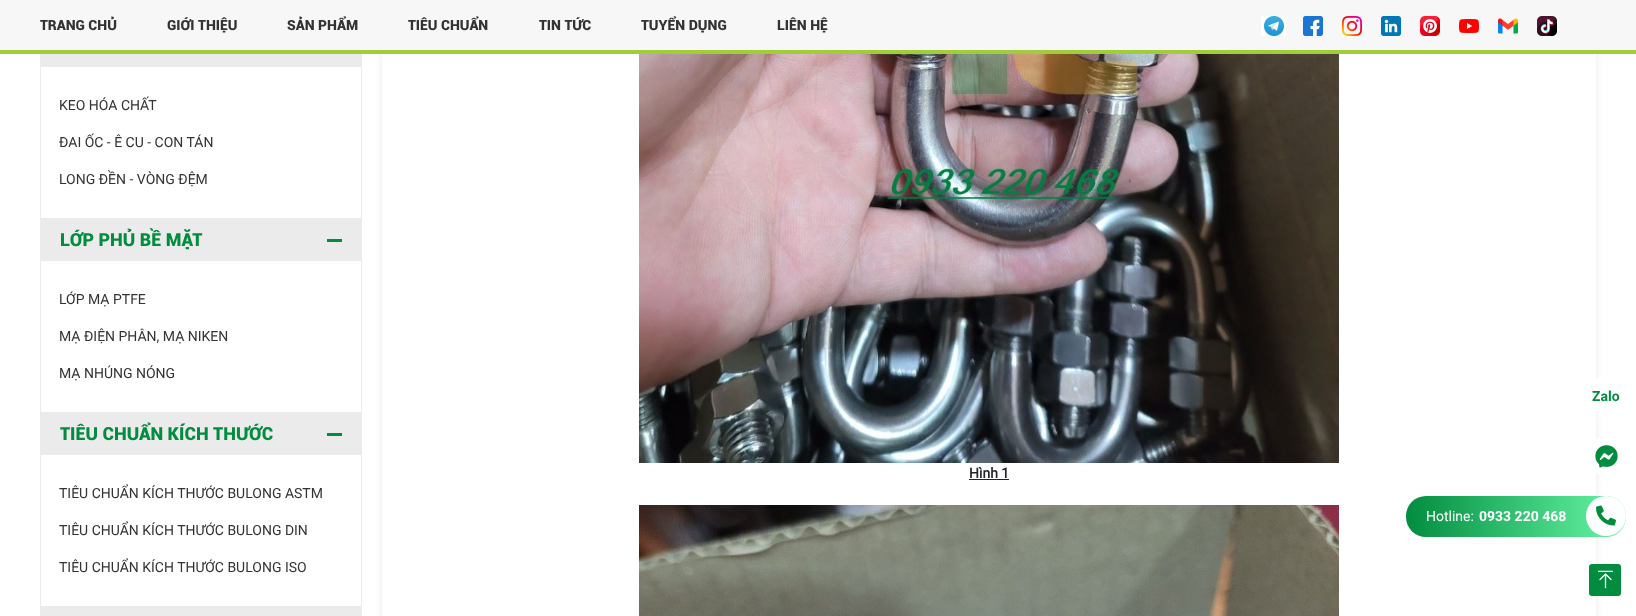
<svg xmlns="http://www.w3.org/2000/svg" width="1636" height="616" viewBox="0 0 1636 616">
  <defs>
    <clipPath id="clip1"><path d="M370 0H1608V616H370ZM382-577H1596V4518H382Z" clip-rule="evenodd"/></clipPath>
    <linearGradient id="g1" gradientUnits="userSpaceOnUse" x1="1406" y1="516" x2="1626" y2="516"><stop offset="0" stop-color="rgb(2,140,63)"/><stop offset="1" stop-color="rgb(104,247,167)"/></linearGradient>
  </defs>
  <rect width="100%" height="100%" fill="rgb(255,255,255)"/>
  <g clip-path="url(#clip1)">
    <rect x="382" y="-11" width="1214" height="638" fill="rgba(50,50,50,0.11)" filter="blur(3.5px)"/>
  </g>
  <rect x="0" y="0" width="1636" height="50" fill="rgb(247,247,247)"/>
  <rect x="0" y="50" width="1636" height="4" fill="rgb(161,205,58)"/>
  <g font-family="Roboto" font-size="14" font-weight="900" fill="rgb(51,51,51)">
    <text x="40" y="30">TRANG CHỦ</text>
    <text x="167" y="30">GIỚI THIỆU</text>
    <text x="287" y="30">SẢN PHẨM</text>
    <text x="408" y="30">TIÊU CHUẨN</text>
    <text x="539" y="30">TIN TỨC</text>
    <text x="641" y="30">TUYỂN DỤNG</text>
    <text x="777" y="30">LIÊN HỆ</text>
  </g>
  <image x="1261" y="16" width="25" height="20" href="pic1.png"/>
  <image x="1303" y="16" width="20" height="20" href="pic2.png"/>
  <image x="1342" y="16" width="20" height="20" href="pic3.png"/>
  <image x="1381" y="16" width="20" height="20" href="pic4.png"/>
  <image x="1420" y="16" width="20" height="20" href="pic5.png"/>
  <image x="1459" y="19" width="20" height="14" href="pic6.png"/>
  <image x="1498" y="18" width="20" height="16" href="pic7.png"/>
  <image x="1537" y="16" width="20" height="20" href="pic8.png"/>
  <rect x="40" y="54" width="322" height="13" fill="rgb(236,235,235)"/>
  <rect x="361" y="67" width="1" height="152" fill="rgb(235,235,235)"/>
  <rect x="40" y="218" width="322" height="1" fill="rgb(235,235,235)"/>
  <rect x="40" y="67" width="1" height="152" fill="rgb(235,235,235)"/>
  <g font-family="Roboto" font-size="14" fill="rgb(51,51,51)">
    <text x="59" y="110">KEO HÓA CHẤT</text>
    <text x="59" y="147">ĐAI ỐC - Ê CU - CON TÁN</text>
    <text x="59" y="184">LONG ĐỀN - VÒNG ĐỆM</text>
  </g>
  <rect x="40" y="219" width="322" height="42" fill="rgb(236,235,235)"/>
  <text x="60" y="246" font-family="Roboto" font-size="18" font-weight="900" fill="rgb(2,140,63)">LỚP PHỦ BỀ MẶT</text>
  <rect x="327" y="239" width="15" height="3" fill="rgb(2,140,63)"/>
  <rect x="361" y="261" width="1" height="152" fill="rgb(235,235,235)"/>
  <rect x="40" y="412" width="322" height="1" fill="rgb(235,235,235)"/>
  <rect x="40" y="261" width="1" height="152" fill="rgb(235,235,235)"/>
  <g font-family="Roboto" font-size="14" fill="rgb(51,51,51)">
    <text x="59" y="304">LỚP MẠ PTFE</text>
    <text x="59" y="341">MẠ ĐIỆN PHÂN, MẠ NIKEN</text>
    <text x="59" y="378">MẠ NHÚNG NÓNG</text>
  </g>
  <rect x="40" y="413" width="322" height="42" fill="rgb(236,235,235)"/>
  <text x="60" y="440" font-family="Roboto" font-size="18" font-weight="900" fill="rgb(2,140,63)">TIÊU CHUẨN KÍCH THƯỚC</text>
  <rect x="327" y="433" width="15" height="3" fill="rgb(2,140,63)"/>
  <rect x="361" y="455" width="1" height="152" fill="rgb(235,235,235)"/>
  <rect x="40" y="606" width="322" height="1" fill="rgb(235,235,235)"/>
  <rect x="40" y="455" width="1" height="152" fill="rgb(235,235,235)"/>
  <g font-family="Roboto" font-size="14" fill="rgb(51,51,51)">
    <text x="59" y="498">TIÊU CHUẨN KÍCH THƯỚC BULONG ASTM</text>
    <text x="59" y="535">TIÊU CHUẨN KÍCH THƯỚC BULONG DIN</text>
    <text x="59" y="572">TIÊU CHUẨN KÍCH THƯỚC BULONG ISO</text>
  </g>
  <rect x="40" y="607" width="322" height="9" fill="rgb(236,235,235)"/>
  <image x="639" y="54" width="700" height="409" href="pic9.png"/>
  <text x="969" y="478" font-family="Roboto" font-size="14" font-weight="bold" fill="rgb(33,37,41)">Hình 1</text>
  <rect x="969" y="479" width="40" height="1" fill="rgb(33,37,41)"/>
  <image x="639" y="505" width="700" height="111" href="pic10.png"/>
  <circle cx="1606" cy="396" r="20" fill="rgb(255,255,255)"/>
  <text x="1592" y="401" font-family="'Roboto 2'" font-size="14" font-weight="bold" fill="rgb(2,140,63)">Zalo</text>
  <circle cx="1606" cy="456" r="20" fill="rgb(255,255,255)"/>
  <image x="1595" y="445" width="23" height="23" href="pic11.png"/>
  <rect x="1406" y="496" width="220" height="41" rx="20" fill="url(#g1)"/>
  <text x="1426" y="521" font-family="Roboto" font-size="14" fill="rgb(255,255,255)">Hotline:</text>
  <text x="1479" y="521" font-family="'Roboto 2'" font-size="14" font-weight="bold" fill="rgb(255,255,255)">0933 220 468</text>
  <circle cx="1606" cy="516" r="20" fill="rgb(255,255,255)"/>
  <image x="1596" y="505" width="20" height="21" href="pic12.png"/>
  <rect x="1589" y="564" width="32" height="32" rx="3" fill="rgb(2,140,63)"/>
  <image x="1598" y="570" width="15" height="19" href="pic13.png"/>
</svg>
